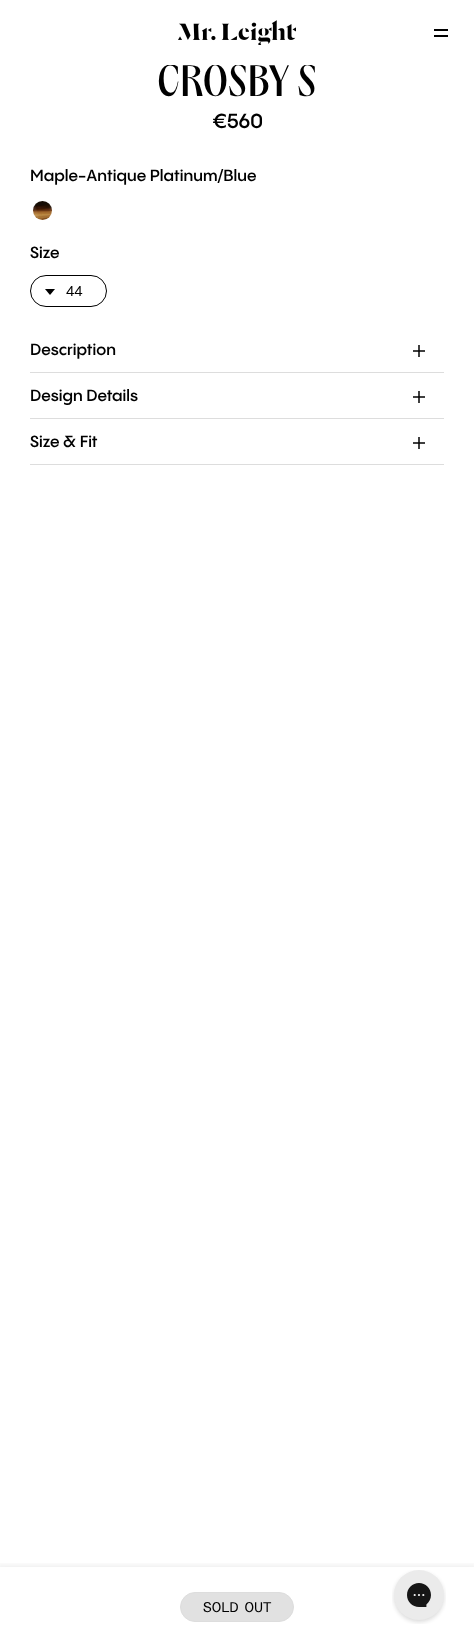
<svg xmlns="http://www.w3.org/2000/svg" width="474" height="1647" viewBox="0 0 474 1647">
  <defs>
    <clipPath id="clip1"><rect x="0" y="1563" width="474" height="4"/></clipPath>
  </defs>
  <rect width="100%" height="100%" fill="rgb(255,255,255)"/>
  <rect x="418" y="437" width="2" height="12" fill="rgb(64,64,64)"/>
  <rect x="418" y="391" width="2" height="12" fill="rgb(64,64,64)"/>
  <rect x="418" y="345" width="2" height="12" fill="rgb(64,64,64)"/>
  <text x="157" y="96" font-family="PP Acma" font-size="40" font-weight="500" fill="rgb(0,0,0)">CROSBY S</text>
  <rect x="167" y="64" width="145" height="1" fill="rgb(255,255,255)"/>
  <image x="178" y="20" width="118" height="25" href="pic1.png"/>
  <rect x="434" y="29" width="14" height="2" fill="rgb(0,0,0)"/>
  <rect x="434" y="35" width="14" height="2" fill="rgb(0,0,0)"/>
  <text x="212" y="128" font-family="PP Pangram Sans" font-size="20" font-weight="600" fill="rgb(0,0,0)">€560</text>
  <text x="30" y="181" font-family="PP Pangram Sans" font-size="16" font-weight="600" fill="rgb(0,0,0)">Maple-Antique Platinum/Blue</text>
  <image x="33" y="201" width="19" height="19" href="pic2.png"/>
  <text x="30" y="258" font-family="PP Pangram Sans" font-size="16" font-weight="600" fill="rgb(0,0,0)">Size</text>
  <path d="M55 289H45L50 295Z" fill="rgb(0,0,0)"/>
  <rect x="30.5" y="275.5" width="76" height="31" rx="15.5" fill="none" stroke="rgb(0,0,0)"/>
  <text x="66" y="296" font-family="PP Pangram Sans" font-size="14" font-weight="500" fill="rgb(0,0,0)">44</text>
  <rect x="30" y="372" width="414" height="1" fill="rgb(221,221,221)"/>
  <text x="30" y="355" font-family="PP Pangram Sans" font-size="16" font-weight="600" fill="rgb(0,0,0)">Description</text>
  <rect x="413" y="350" width="12" height="2" fill="rgb(64,64,64)"/>
  <rect x="418" y="350" width="2" height="2" fill="rgb(16,16,16)"/>
  <rect x="30" y="418" width="414" height="1" fill="rgb(221,221,221)"/>
  <text x="30" y="401" font-family="PP Pangram Sans" font-size="16" font-weight="600" fill="rgb(0,0,0)">Design Details</text>
  <rect x="413" y="396" width="12" height="2" fill="rgb(64,64,64)"/>
  <rect x="418" y="396" width="2" height="2" fill="rgb(16,16,16)"/>
  <rect x="30" y="464" width="414" height="1" fill="rgb(221,221,221)"/>
  <text x="30" y="447" font-family="PP Pangram Sans" font-size="16" font-weight="600" fill="rgb(0,0,0)">Size &amp; Fit</text>
  <rect x="413" y="442" width="12" height="2" fill="rgb(64,64,64)"/>
  <rect x="418" y="442" width="2" height="2" fill="rgb(16,16,16)"/>
  <g clip-path="url(#clip1)">
    <rect x="-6" y="1569" width="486" height="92" fill="rgba(0,0,0,0.14)" filter="blur(5.5px)"/>
  </g>
  <rect x="180.5" y="1592.5" width="113" height="29" rx="14.5" fill="rgb(225,225,225)" stroke="rgb(221,221,221)"/>
  <text x="203" y="1612" font-family="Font" font-size="14" fill="rgb(0,0,0)">SOLD OUT</text>
  <image x="392" y="1570" width="54" height="54" href="pic3.png"/>
</svg>
